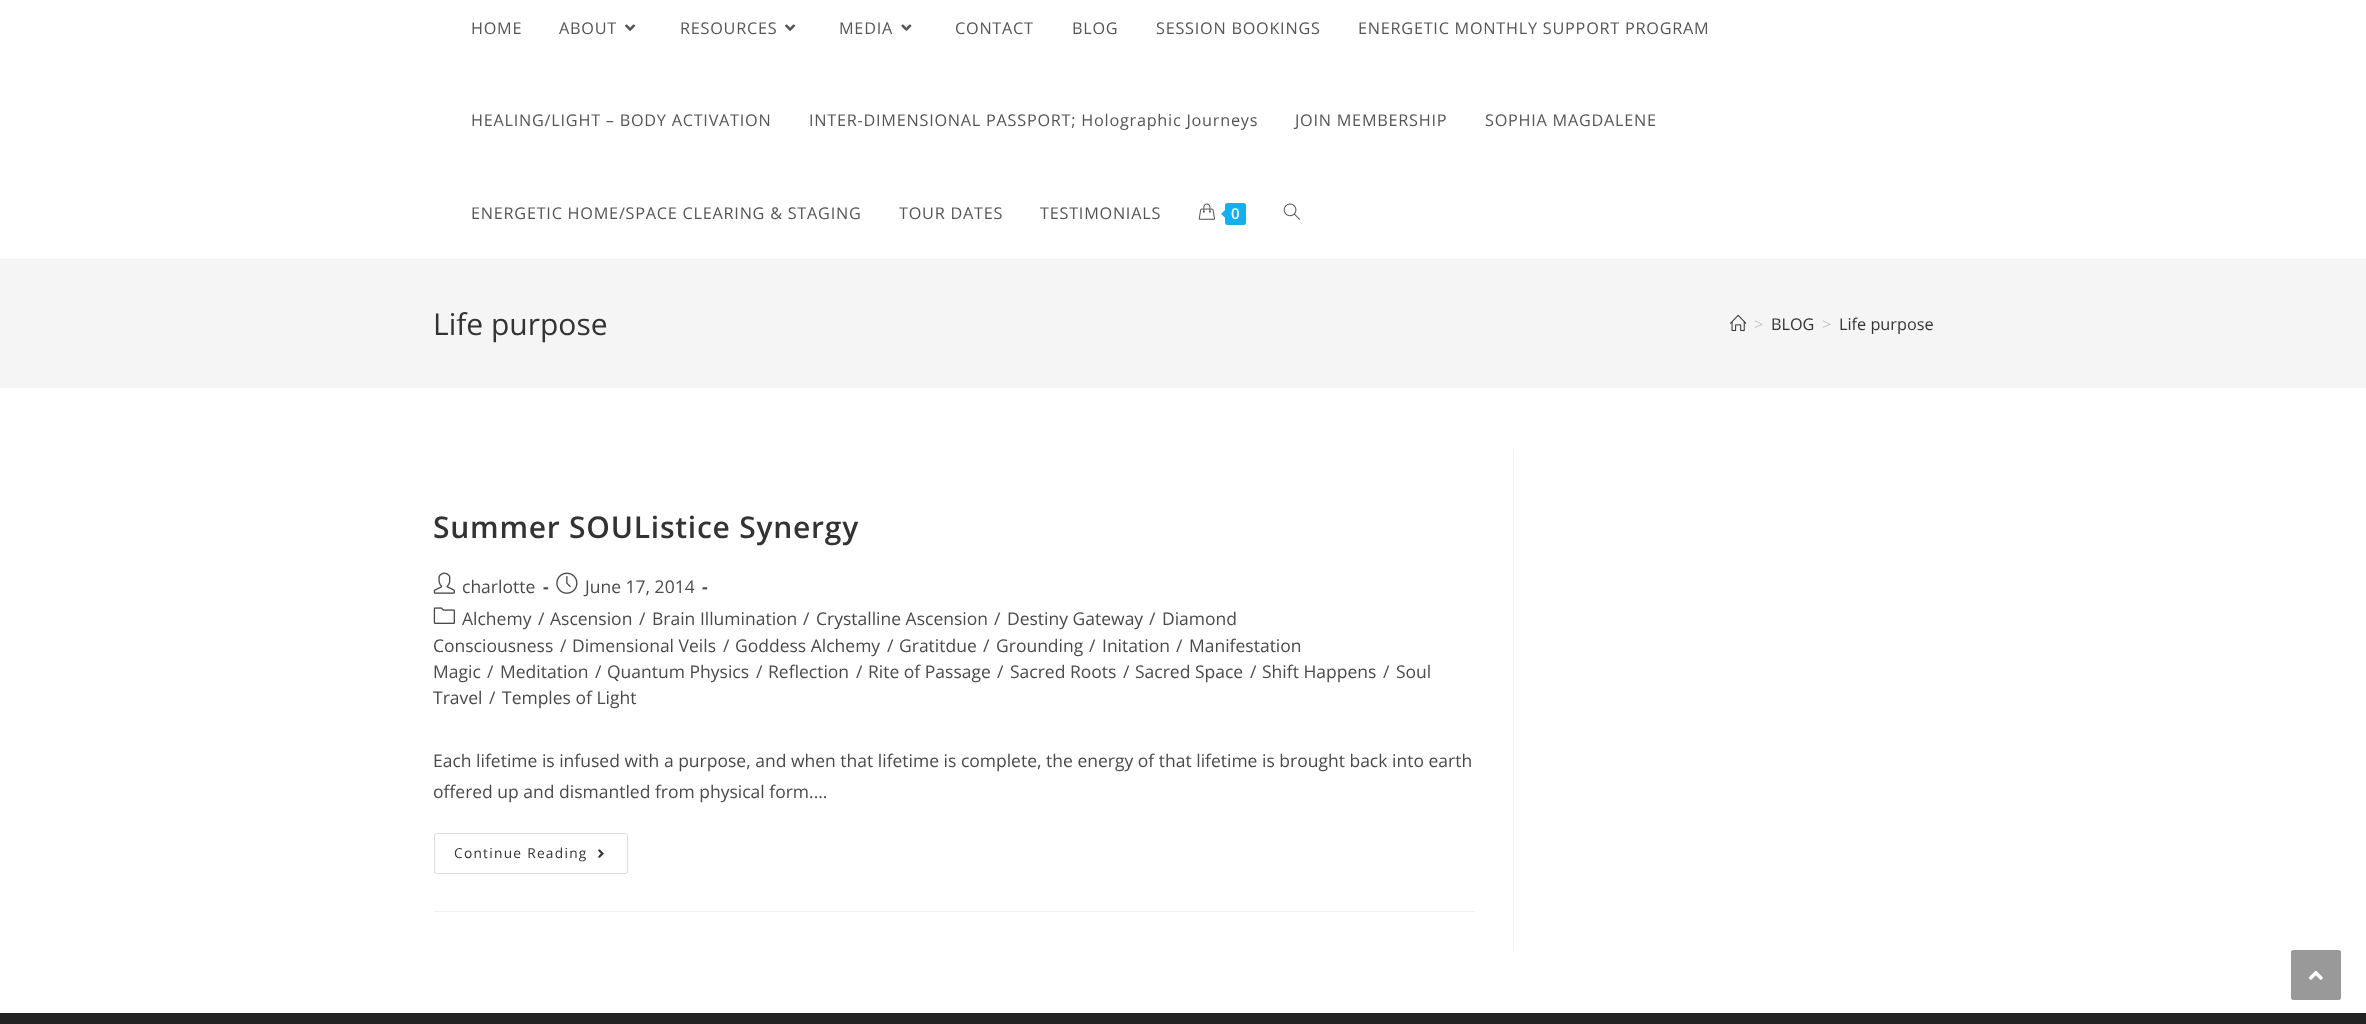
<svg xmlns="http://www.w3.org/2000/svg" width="2366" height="1024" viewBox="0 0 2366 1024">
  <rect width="100%" height="100%" fill="rgb(255,255,255)"/>
  <rect x="0" y="259" width="2366" height="1" fill="rgb(241,241,241)"/>
  <g font-family="Open Sans" font-size="16.25" letter-spacing="0.75" fill="rgb(85,85,85)">
    <text x="471" y="34">HOME</text>
    <text x="559" y="34">ABOUT</text>
  </g>
  <image x="625" y="24" width="11" height="7" href="pic1.png"/>
  <text x="680" y="34" font-family="Open Sans" font-size="16.25" letter-spacing="0.75" fill="rgb(85,85,85)">RESOURCES</text>
  <image x="785" y="24" width="11" height="7" href="pic1.png"/>
  <text x="839" y="34" font-family="Open Sans" font-size="16.25" letter-spacing="0.75" fill="rgb(85,85,85)">MEDIA</text>
  <image x="901" y="24" width="11" height="7" href="pic2.png"/>
  <g font-family="Open Sans" font-size="16.25" letter-spacing="0.75" fill="rgb(85,85,85)">
    <text x="955" y="34">CONTACT</text>
    <text x="1072" y="34">BLOG</text>
    <text x="1156" y="34">SESSION BOOKINGS</text>
    <text x="1358" y="34">ENERGETIC MONTHLY SUPPORT PROGRAM</text>
    <text x="471" y="126">HEALING/LIGHT – BODY ACTIVATION</text>
    <text x="809" y="126">INTER-DIMENSIONAL PASSPORT; Holographic Journeys</text>
    <text x="1295" y="126">JOIN MEMBERSHIP</text>
    <text x="1485" y="126">SOPHIA MAGDALENE</text>
    <text x="471" y="219">ENERGETIC HOME/SPACE CLEARING &amp; STAGING</text>
    <text x="899" y="219">TOUR DATES</text>
    <text x="1040" y="219">TESTIMONIALS</text>
  </g>
  <image x="1198" y="203" width="17" height="17" href="pic3.png"/>
  <rect x="1225" y="203" width="21" height="22" rx="2.5" fill="rgb(19,175,240)"/>
  <path d="M1227.5 207.5V220L1221 214Z" fill="rgb(19,175,240)"/>
  <text x="1231" y="219" font-family="Open Sans" font-size="15" font-weight="600" fill="rgb(255,255,255)">0</text>
  <image x="1283" y="203" width="17" height="17" href="pic4.png"/>
  <rect x="0" y="260" width="2366" height="128" fill="rgb(245,245,245)"/>
  <text x="433" y="335" font-family="Open Sans" font-size="30" fill="rgb(51,51,51)">Life purpose</text>
  <image x="1730" y="314" width="17" height="17" href="pic5.png"/>
  <text x="1754" y="330" font-family="Open Sans" font-size="16.25" fill="rgb(198,198,198)">&gt;</text>
  <text x="1771" y="330" font-family="Open Sans" font-size="16.25" fill="rgb(51,51,51)">BLOG</text>
  <text x="1822" y="330" font-family="Open Sans" font-size="16.25" fill="rgb(198,198,198)">&gt;</text>
  <text x="1839" y="330" font-family="Open Sans" font-size="16.25" fill="rgb(51,51,51)">Life purpose</text>
  <rect x="1513" y="450" width="1" height="500" fill="rgb(241,241,241)"/>
  <rect x="434" y="911" width="1041" height="1" fill="rgb(241,241,241)"/>
  <text x="433" y="538" font-family="Open Sans" font-size="30" font-weight="600" letter-spacing="0.75" fill="rgb(51,51,51)">Summer SOUListice Synergy</text>
  <image x="433" y="572" width="22" height="22" href="pic6.png"/>
  <text x="462" y="593" font-family="Open Sans" font-size="17.5" fill="rgb(74,74,74)">charlotte</text>
  <text x="543" y="593" font-family="Open Sans" font-size="17.5" font-weight="bold" fill="rgb(74,74,74)">-</text>
  <image x="556" y="572" width="22" height="22" href="pic7.png"/>
  <text x="585" y="593" font-family="Open Sans" font-size="17.5" fill="rgb(74,74,74)">June 17, 2014</text>
  <text x="702" y="593" font-family="Open Sans" font-size="17.5" font-weight="bold" fill="rgb(74,74,74)">-</text>
  <image x="433" y="607" width="22" height="17" href="pic8.png"/>
  <g font-family="Open Sans" font-size="17.5" fill="rgb(74,74,74)">
    <text x="462" y="625">Alchemy</text>
    <text x="538" y="625">/</text>
    <text x="550" y="625">Ascension</text>
    <text x="639" y="625">/</text>
    <text x="652" y="625">Brain Illumination</text>
    <text x="803" y="625">/</text>
    <text x="816" y="625">Crystalline Ascension</text>
    <text x="994" y="625">/</text>
    <text x="1007" y="625">Destiny Gateway</text>
    <text x="1149" y="625">/</text>
    <text x="1162" y="625">Diamond</text>
    <text x="433" y="652">Consciousness</text>
    <text x="560" y="652">/</text>
    <text x="572" y="652">Dimensional Veils</text>
    <text x="723" y="652">/</text>
    <text x="735" y="652">Goddess Alchemy</text>
    <text x="887" y="652">/</text>
    <text x="899" y="652">Gratitdue</text>
    <text x="983" y="652">/</text>
    <text x="996" y="652">Grounding</text>
    <text x="1089" y="652">/</text>
    <text x="1102" y="652">Initation</text>
    <text x="1176" y="652">/</text>
    <text x="1189" y="652">Manifestation</text>
    <text x="433" y="678">Magic</text>
    <text x="487" y="678">/</text>
    <text x="500" y="678">Meditation</text>
    <text x="595" y="678">/</text>
    <text x="607" y="678">Quantum Physics</text>
    <text x="756" y="678">/</text>
    <text x="768" y="678">Reflection</text>
    <text x="856" y="678">/</text>
    <text x="868" y="678">Rite of Passage</text>
    <text x="997" y="678">/</text>
    <text x="1010" y="678">Sacred Roots</text>
    <text x="1123" y="678">/</text>
    <text x="1135" y="678">Sacred Space</text>
    <text x="1250" y="678">/</text>
    <text x="1262" y="678">Shift Happens</text>
    <text x="1383" y="678">/</text>
    <text x="1396" y="678">Soul</text>
    <text x="433" y="704">Travel</text>
    <text x="489" y="704">/</text>
    <text x="502" y="704">Temples of Light</text>
    <text>
      <tspan x="433" y="767">Each lifetime is infused with a purpose, and when that lifetime is complete, the energy of that lifetime is brought back into earth</tspan>
      <tspan x="433" y="798">offered up and dismantled from physical form.…</tspan>
    </text>
  </g>
  <rect x="434.5" y="833.5" width="193" height="40" rx="2" fill="none" stroke="rgb(221,221,221)"/>
  <text x="454" y="858" font-family="Open Sans" font-size="13.75" letter-spacing="1.25" fill="rgb(51,51,51)">Continue Reading</text>
  <image x="598" y="849" width="6" height="9" href="pic9.png"/>
  <rect x="0" y="1013" width="2366" height="11" fill="rgb(34,34,34)"/>
  <rect x="2291" y="950" width="50" height="50" rx="2.5" fill="rgb(153,153,153)"/>
  <image x="2308" y="970" width="15" height="10" href="pic10.png"/>
</svg>
